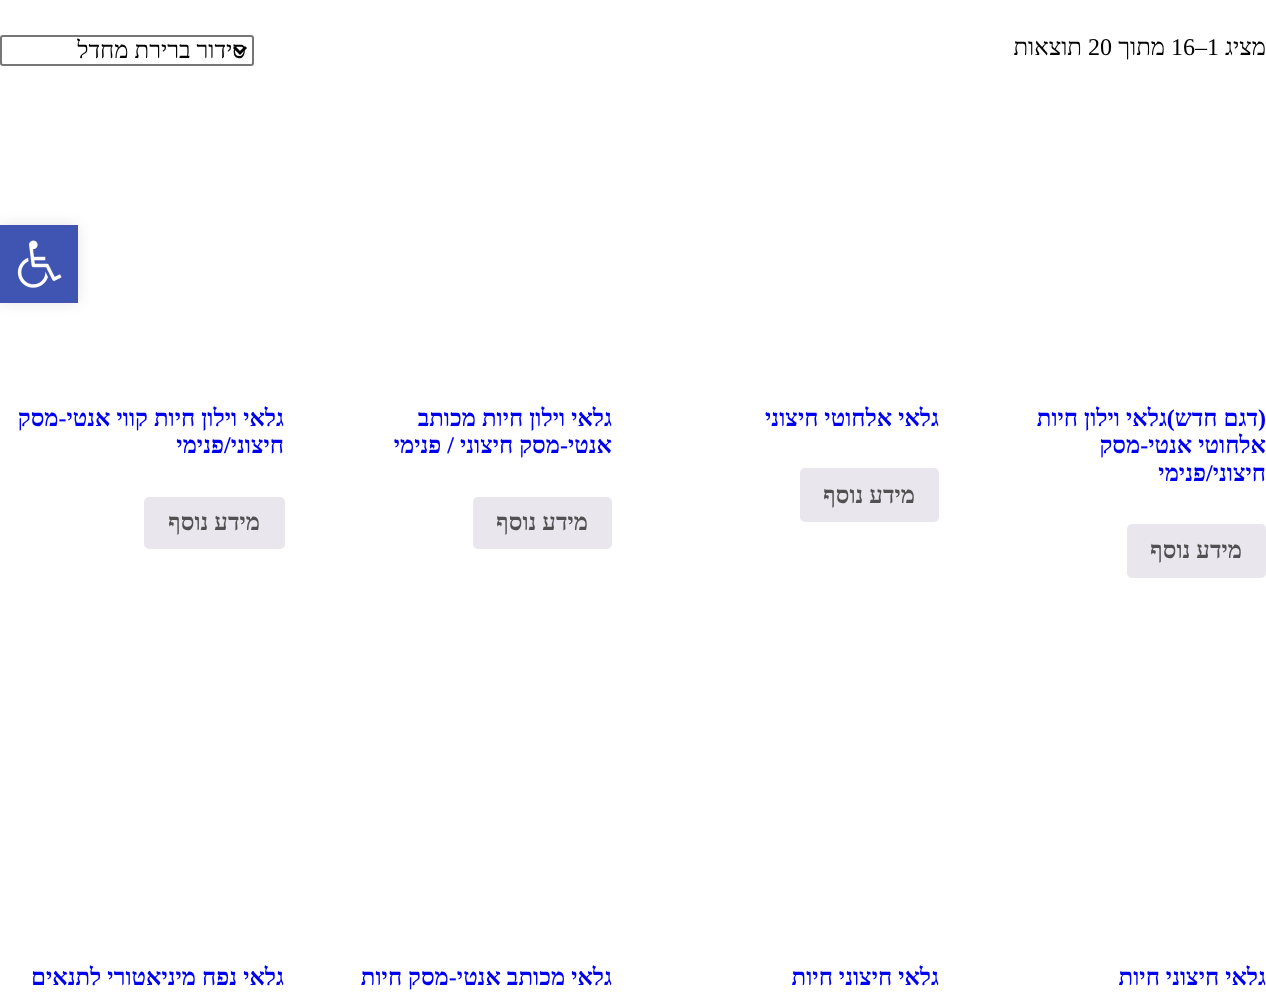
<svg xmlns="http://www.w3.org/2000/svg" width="1266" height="1007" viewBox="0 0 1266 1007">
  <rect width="100%" height="100%" fill="rgb(255,255,255)"/>
  <text x="1266" y="55" font-family="Liberation Serif" font-size="24" direction="rtl" fill="rgb(0,0,0)">מציג</text>
  <text x="1171" y="55" font-family="Liberation Serif" font-size="24" fill="rgb(0,0,0)">16–1</text>
  <text x="1165" y="55" font-family="Liberation Serif" font-size="24" direction="rtl" fill="rgb(0,0,0)">מתוך</text>
  <text x="1088" y="55" font-family="Liberation Serif" font-size="24" fill="rgb(0,0,0)">20</text>
  <text x="1082" y="55" font-family="Liberation Serif" font-size="24" direction="rtl" fill="rgb(0,0,0)">תוצאות</text>
  <rect x="1" y="36" width="252" height="29" rx="2" fill="none" stroke="rgb(118,118,118)" stroke-width="2"/>
  <path d="M234 47L240 53L246 47" fill="none" stroke="rgb(0,0,0)" stroke-width="3"/>
  <text x="246" y="58" font-family="Liberation Serif" font-size="24" direction="rtl" fill="rgb(0,0,0)">סידור ברירת מחדל</text>
  <g font-family="Liberation Serif" font-size="24" font-weight="bold" direction="rtl" fill="rgb(0,0,238)">
    <text>
      <tspan x="1266" y="426">(דגם חדש)גלאי וילון חיות</tspan>
      <tspan x="1266" y="453">אלחוטי אנטי-מסק</tspan>
      <tspan x="1266" y="481">חיצוני/פנימי</tspan>
    </text>
  </g>
  <rect x="1127" y="524" width="139" height="54" rx="5" fill="rgb(233,230,237)"/>
  <text x="1242" y="558" font-family="Liberation Serif" font-size="24" font-weight="bold" direction="rtl" fill="rgb(81,81,81)">מידע נוסף</text>
  <text x="939" y="426" font-family="Liberation Serif" font-size="24" font-weight="bold" direction="rtl" fill="rgb(0,0,238)">גלאי אלחוטי חיצוני</text>
  <rect x="800" y="468" width="139" height="54" rx="5" fill="rgb(233,230,237)"/>
  <text x="915" y="503" font-family="Liberation Serif" font-size="24" font-weight="bold" direction="rtl" fill="rgb(81,81,81)">מידע נוסף</text>
  <g font-family="Liberation Serif" font-size="24" font-weight="bold" direction="rtl" fill="rgb(0,0,238)">
    <text>
      <tspan x="612" y="426">גלאי וילון חיות מכותב</tspan>
      <tspan x="612" y="453">אנטי-מסק חיצוני / פנימי</tspan>
    </text>
  </g>
  <rect x="473" y="497" width="139" height="52" rx="5" fill="rgb(233,230,237)"/>
  <text x="588" y="530" font-family="Liberation Serif" font-size="24" font-weight="bold" direction="rtl" fill="rgb(81,81,81)">מידע נוסף</text>
  <g font-family="Liberation Serif" font-size="24" font-weight="bold" direction="rtl" fill="rgb(0,0,238)">
    <text>
      <tspan x="284" y="426">גלאי וילון חיות קווי אנטי-מסק</tspan>
      <tspan x="284" y="453">חיצוני/פנימי</tspan>
    </text>
  </g>
  <rect x="144" y="497" width="141" height="52" rx="5" fill="rgb(233,230,237)"/>
  <text x="260" y="530" font-family="Liberation Serif" font-size="24" font-weight="bold" direction="rtl" fill="rgb(81,81,81)">מידע נוסף</text>
  <g font-family="Liberation Serif" font-size="24" font-weight="bold" direction="rtl" fill="rgb(0,0,238)">
    <text x="1266" y="985">גלאי חיצוני חיות</text>
    <text x="939" y="985">גלאי חיצוני חיות</text>
    <text x="612" y="985">גלאי מכותב אנטי-מסק חיות</text>
    <text x="284" y="985">גלאי נפח מיניאטורי לתנאים</text>
  </g>
  <rect x="0" y="225" width="78" height="78" fill="rgba(0,0,0,0.1)" filter="blur(7.5px)"/>
  <rect x="0" y="225" width="78" height="78" fill="rgb(64,84,178)"/>
  <image x="17" y="240" width="45" height="48" href="pic1.png"/>
</svg>
